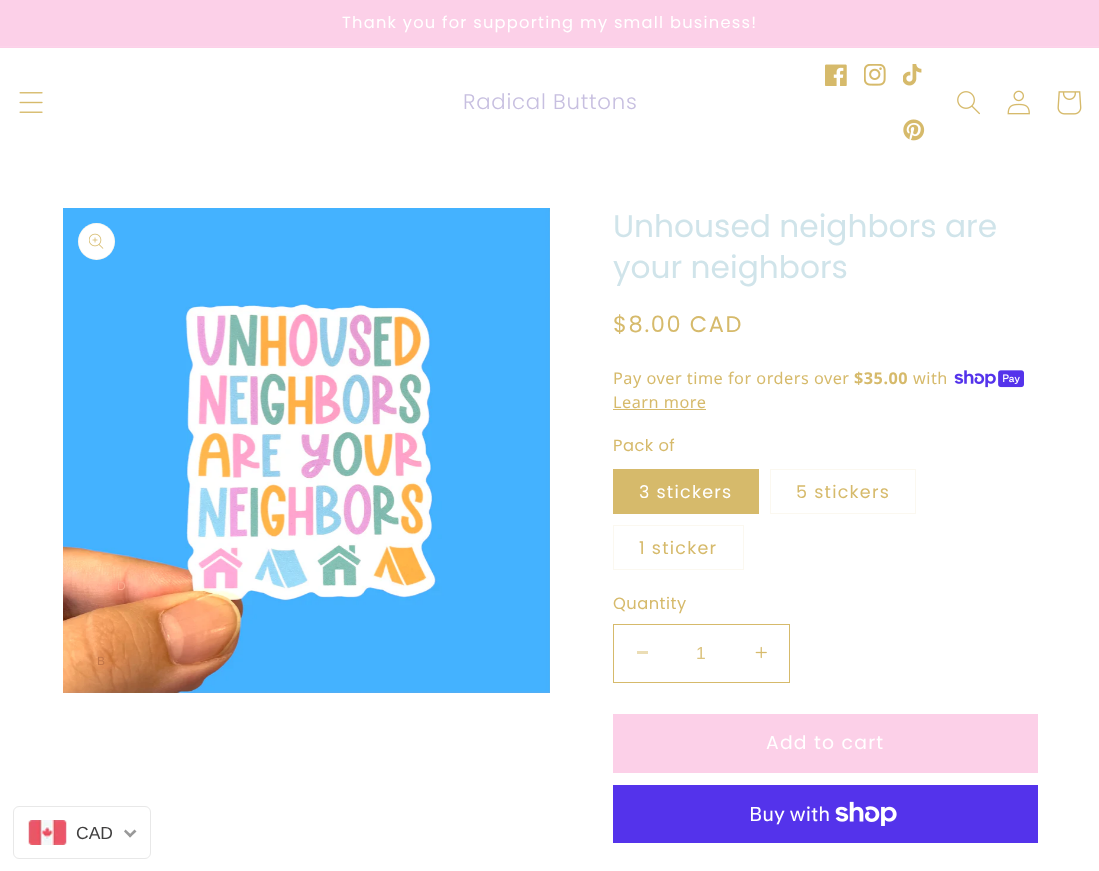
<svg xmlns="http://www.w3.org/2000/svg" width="1099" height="871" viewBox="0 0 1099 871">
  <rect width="100%" height="100%" fill="rgb(255,255,255)"/>
  <rect x="0" y="0" width="1099" height="48" fill="rgb(252,208,232)"/>
  <rect x="0" y="46" width="1099" height="1" fill="rgb(252,212,234)"/>
  <text x="342" y="28" font-family="Poppins" font-size="16.25" letter-spacing="1.25" fill="rgb(255,255,255)">Thank you for supporting my small business!</text>
  <image x="19" y="92" width="24" height="21" href="pic1.png"/>
  <text x="463" y="109" font-family="Poppins" font-size="21.25" font-weight="300" letter-spacing="0.75" fill="rgb(199,191,224)">Radical Buttons</text>
  <image x="825" y="64" width="22" height="22" href="pic2.png"/>
  <image x="864" y="64" width="22" height="22" href="pic3.png"/>
  <image x="903" y="64" width="19" height="22" href="pic4.png"/>
  <image x="903" y="119" width="22" height="22" href="pic5.png"/>
  <image x="957" y="91" width="23" height="24" href="pic6.png"/>
  <image x="1007" y="90" width="23" height="25" href="pic7.png"/>
  <image x="1057" y="91" width="25" height="24" href="pic8.png"/>
  <rect x="13.5" y="806.5" width="137" height="52" rx="5.5" fill="none" stroke="rgb(232,232,232)"/>
  <image x="63" y="208" width="487" height="485" href="pic10.png"/>
  <text x="117" y="590" font-family="Liberation Sans" font-size="12" fill="rgb(251,169,139)">D</text>
  <text x="97" y="665" font-family="Liberation Sans" font-size="12" fill="rgb(195,118,73)">B</text>
  <image x="28" y="820" width="39" height="25" href="pic9.png"/>
  <text x="76" y="839" font-family="Liberation Sans" font-size="17.5" fill="rgb(64,63,63)">CAD</text>
  <path d="M134.5 829.5L136.5 831.5L130 837.5L128.5 835.5Z" fill="rgb(153,153,153)"/>
  <path d="M125.5 829.5L132 835.5L130 837.5L124 831.5Z" fill="rgb(153,153,153)"/>
  <circle cx="96.5" cy="241.5" r="18.5" fill="rgb(255,255,255)"/>
  <circle cx="96.5" cy="241.5" r="18" fill="none" stroke="rgba(214,186,107,0.1)"/>
  <image x="89" y="233" width="15" height="16" href="pic11.png"/>
  <g font-family="Poppins" font-size="31.25" fill="rgb(208,228,234)">
    <text>
      <tspan x="613" y="237">Unhoused neighbors are</tspan>
      <tspan x="613" y="278">your neighbors</tspan>
    </text>
  </g>
  <text x="613" y="332" font-family="Poppins" font-size="22.5" letter-spacing="1.6" fill="rgb(214,186,107)">$8.00 CAD</text>
  <text x="613" y="384" font-family="Noto Sans" font-size="16.25" letter-spacing="0.5" fill="rgb(214,186,107)">Pay over time for orders over</text>
  <text x="854" y="384" font-family="Noto Sans" font-size="16.25" font-weight="bold" letter-spacing="0.5" fill="rgb(214,186,107)">$35.00</text>
  <text x="913" y="384" font-family="Noto Sans" font-size="16.25" letter-spacing="0.5" fill="rgb(214,186,107)">with</text>
  <image x="954" y="370" width="70" height="18" href="pic12.png"/>
  <text x="613" y="408" font-family="Noto Sans" font-size="16.25" letter-spacing="0.5" fill="rgb(214,186,107)">Learn more</text>
  <rect x="613" y="409" width="93" height="1" fill="rgb(214,186,107)"/>
  <text x="613" y="451" font-family="Poppins" font-size="16.25" letter-spacing="0.5" fill="rgb(214,186,107)">Pack of</text>
  <rect x="613" y="469" width="146" height="45" fill="rgb(214,186,107)"/>
  <text x="639" y="498" font-family="Poppins" font-size="17.5" letter-spacing="1.25" fill="rgb(255,255,255)">3 stickers</text>
  <rect x="770.5" y="469.5" width="145" height="44" fill="none" stroke="rgb(251,248,240)"/>
  <text x="796" y="498" font-family="Poppins" font-size="17.5" letter-spacing="1.25" fill="rgb(214,186,107)">5 stickers</text>
  <rect x="613.5" y="525.5" width="130" height="44" fill="none" stroke="rgb(251,248,240)"/>
  <text x="639" y="554" font-family="Poppins" font-size="17.5" letter-spacing="1.25" fill="rgb(214,186,107)">1 sticker</text>
  <text x="613" y="609" font-family="Poppins" font-size="16.25" letter-spacing="0.5" fill="rgb(214,186,107)">Quantity</text>
  <rect x="637" y="651" width="11" height="3" fill="rgb(235,221,181)"/>
  <image x="755" y="646" width="12" height="13" href="pic13.png"/>
  <rect x="613.5" y="624.5" width="176" height="58" fill="none" stroke="rgb(214,186,107)"/>
  <text x="696" y="659" font-family="Liberation Sans" font-size="17.5" fill="rgb(220,196,129)">1</text>
  <rect x="613" y="714" width="425" height="59" fill="rgb(252,208,232)"/>
  <text x="766" y="749" font-family="Poppins" font-size="18.75" letter-spacing="1.25" fill="rgb(255,255,255)">Add to cart</text>
  <rect x="613" y="785" width="425" height="58" fill="rgb(84,51,235)"/>
  <text x="749" y="821" font-family="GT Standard" font-size="20" fill="rgb(255,255,255)">Buy with</text>
  <image x="835" y="801" width="62" height="25" href="pic14.png"/>
</svg>
